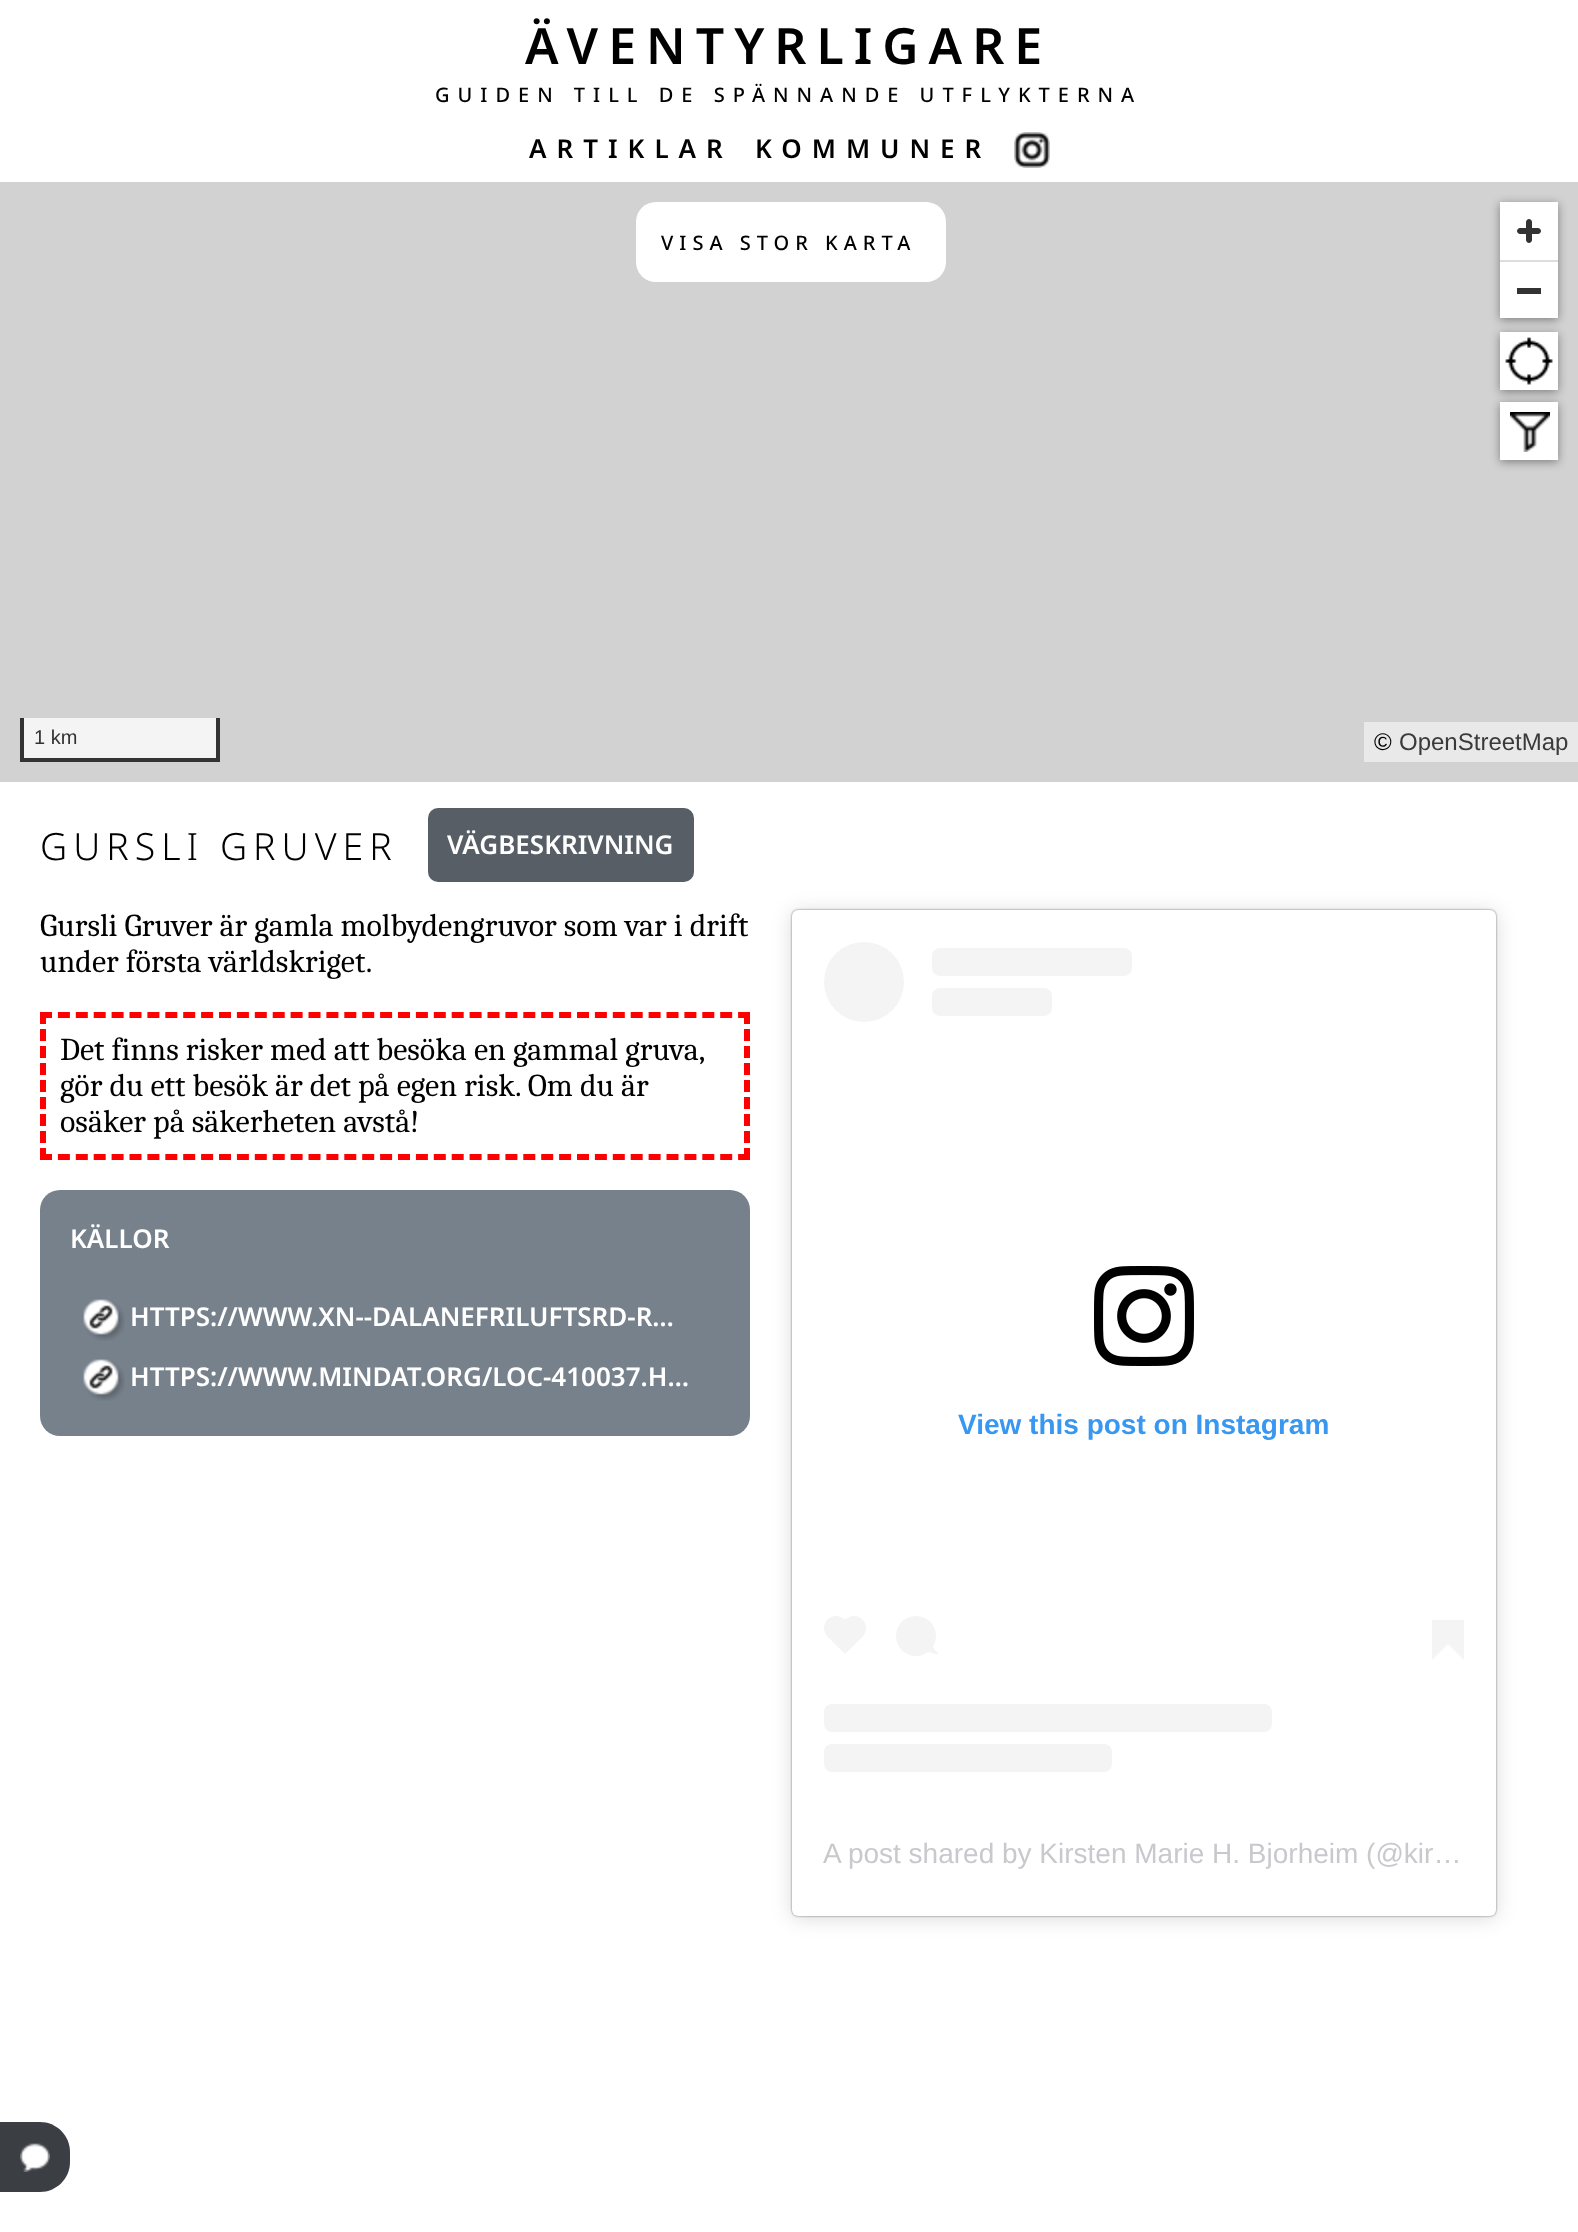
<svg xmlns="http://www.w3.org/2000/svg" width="1578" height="2232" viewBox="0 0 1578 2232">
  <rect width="100%" height="100%" fill="rgb(255,255,255)"/>
  <text x="525" y="64" font-family="Noto Sans" font-size="50" font-weight="600" letter-spacing="10" fill="rgb(0,0,0)">ÄVENTYRLIGARE</text>
  <text x="435" y="102" font-family="Noto Sans" font-size="20" font-weight="500" letter-spacing="8" fill="rgb(0,0,0)">GUIDEN TILL DE SPÄNNANDE UTFLYKTERNA</text>
  <g font-family="Noto Sans" font-size="26" font-weight="600" letter-spacing="10" fill="rgb(0,0,0)">
    <text x="529" y="158">ARTIKLAR</text>
    <text x="755" y="158">KOMMUNER</text>
  </g>
  <image x="1014" y="132" width="36" height="36" href="pic1.png"/>
  <rect x="0" y="182" width="1578" height="600" fill="rgb(210,210,210)"/>
  <rect x="636" y="202" width="310" height="80" rx="20" fill="rgb(255,255,255)"/>
  <text x="661" y="250" font-family="Noto Sans" font-size="20" font-weight="500" letter-spacing="6" fill="rgb(0,0,0)">VISA STOR KARTA</text>
  <rect x="1500" y="334" width="58" height="58" fill="rgba(0,0,0,0.4)" filter="blur(5px)"/>
  <rect x="1500" y="204" width="58" height="116" fill="rgba(0,0,0,0.4)" filter="blur(5px)"/>
  <rect x="1500" y="332" width="58" height="58" fill="rgb(255,255,255)"/>
  <image x="1505" y="337" width="48" height="48" href="pic2.png"/>
  <rect x="1500" y="404" width="58" height="58" fill="rgba(0,0,0,0.4)" filter="blur(5px)"/>
  <rect x="1500" y="402" width="58" height="58" fill="rgb(255,255,255)"/>
  <image x="1510" y="412" width="40" height="40" href="pic3.png"/>
  <rect x="1500" y="202" width="58" height="116" fill="rgb(255,255,255)"/>
  <image x="1517" y="219" width="24" height="24" href="pic4.png"/>
  <rect x="1500" y="260" width="58" height="2" fill="rgb(221,221,221)"/>
  <rect x="1517" y="288" width="24" height="6" fill="rgb(51,51,51)"/>
  <rect x="24" y="718" width="192" height="40" fill="rgb(244,244,244)"/>
  <rect x="216" y="718" width="4" height="44" fill="rgb(51,51,51)"/>
  <rect x="20" y="758" width="200" height="4" fill="rgb(51,51,51)"/>
  <rect x="20" y="718" width="4" height="44" fill="rgb(51,51,51)"/>
  <text x="34" y="744" font-family="Liberation Sans" font-size="20" fill="rgb(51,51,51)">1 km</text>
  <rect x="1364" y="722" width="214" height="40" fill="rgb(233,233,233)"/>
  <text x="1374" y="750" font-family="Liberation Sans" font-size="24" fill="rgb(0,0,0)">©</text>
  <text x="1399" y="750" font-family="Liberation Sans" font-size="24" fill="rgb(58,58,58)">OpenStreetMap</text>
  <text x="40" y="860" font-family="Noto Sans" font-size="37.5" font-weight="300" letter-spacing="6" fill="rgb(0,0,0)">GURSLI GRUVER</text>
  <rect x="428" y="808" width="266" height="74" rx="10" fill="rgb(87,94,101)"/>
  <text x="447" y="854" font-family="Noto Sans" font-size="26" font-weight="600" fill="rgb(255,255,255)">VÄGBESKRIVNING</text>
  <g font-family="Caladea" font-size="32" fill="rgb(0,0,0)">
    <text>
      <tspan x="40" y="936">Gursli Gruver är gamla molbydengruvor som var i drift</tspan>
      <tspan x="40" y="972">under första världskriget.</tspan>
    </text>
  </g>
  <path d="M40 1015H750" fill="none" stroke="rgb(255,0,0)" stroke-width="6" stroke-dasharray="12 5.9"/>
  <path d="M747 1012V1160" fill="none" stroke="rgb(255,0,0)" stroke-width="6" stroke-dasharray="12 5"/>
  <path d="M40 1157H750" fill="none" stroke="rgb(255,0,0)" stroke-width="6" stroke-dasharray="12 5.9"/>
  <path d="M43 1012V1160" fill="none" stroke="rgb(255,0,0)" stroke-width="6" stroke-dasharray="12 5"/>
  <g font-family="Caladea" font-size="32" fill="rgb(0,0,0)">
    <text>
      <tspan x="60" y="1060">Det finns risker med att besöka en gammal gruva,</tspan>
      <tspan x="60" y="1096">gör du ett besök är det på egen risk. Om du är</tspan>
      <tspan x="60" y="1132">osäker på säkerheten avstå!</tspan>
    </text>
  </g>
  <rect x="40" y="1190" width="710" height="246" rx="20" fill="rgb(119,129,139)"/>
  <text x="70" y="1248" font-family="Noto Sans" font-size="26" font-weight="600" fill="rgb(255,255,255)">KÄLLOR</text>
  <image x="83" y="1299" width="42" height="42" href="pic5.png"/>
  <text x="130" y="1326" font-family="Noto Sans" font-size="26" font-weight="600" fill="rgb(255,255,255)">HTTPS://WWW.XN--DALANEFRILUFTSRD-R…</text>
  <image x="83" y="1359" width="42" height="42" href="pic5.png"/>
  <text x="130" y="1386" font-family="Noto Sans" font-size="26" font-weight="600" fill="rgb(255,255,255)">HTTPS://WWW.MINDAT.ORG/LOC-410037.H…</text>
  <rect x="792" y="912" width="704" height="1006" rx="6" fill="rgba(0,0,0,0.15)" filter="blur(10px)"/>
  <rect x="792" y="910" width="704" height="1006" rx="6" fill="rgba(0,0,0,0.5)" filter="blur(1px)"/>
  <rect x="792" y="910" width="704" height="1006" rx="6" fill="rgb(255,255,255)"/>
  <circle cx="864" cy="982" r="40" fill="rgb(244,244,244)"/>
  <rect x="932" y="948" width="200" height="28" rx="8" fill="rgb(244,244,244)"/>
  <rect x="932" y="988" width="120" height="28" rx="8" fill="rgb(244,244,244)"/>
  <image x="1094" y="1266" width="100" height="100" href="pic6.png"/>
  <text x="958" y="1434" font-family="Liberation Sans" font-size="28" font-weight="bold" fill="rgb(56,151,240)">View this post on Instagram</text>
  <circle cx="836" cy="1628" r="12" fill="rgb(244,244,244)"/>
  <path d="M827.5 1636.5L845 1619L863 1636.5L845 1654Z" fill="rgb(244,244,244)"/>
  <circle cx="854" cy="1628" r="12" fill="rgb(244,244,244)"/>
  <circle cx="916" cy="1636" r="20" fill="rgb(244,244,244)"/>
  <path d="M927 1652L931 1645L939 1654.5Z" fill="rgb(244,244,244)"/>
  <rect x="1432" y="1620" width="32" height="24" fill="rgb(244,244,244)"/>
  <path d="M1432 1644H1448L1432 1660Z" fill="rgb(244,244,244)"/>
  <path d="M1448 1644H1464V1660Z" fill="rgb(244,244,244)"/>
  <rect x="824" y="1704" width="448" height="28" rx="8" fill="rgb(244,244,244)"/>
  <rect x="824" y="1744" width="288" height="28" rx="8" fill="rgb(244,244,244)"/>
  <text x="823" y="1863" font-family="Liberation Sans" font-size="28" fill="rgb(201,200,205)">A post shared by Kirsten Marie H. Bjorheim (@kir…</text>
  <path d="M0 2122H40C56.5 2122 70 2135.5 70 2152V2162C70 2178.5 56.5 2192 40 2192H0Z" fill="rgb(59,63,68)"/>
  <image x="20" y="2143" width="30" height="29" href="pic7.png"/>
</svg>
